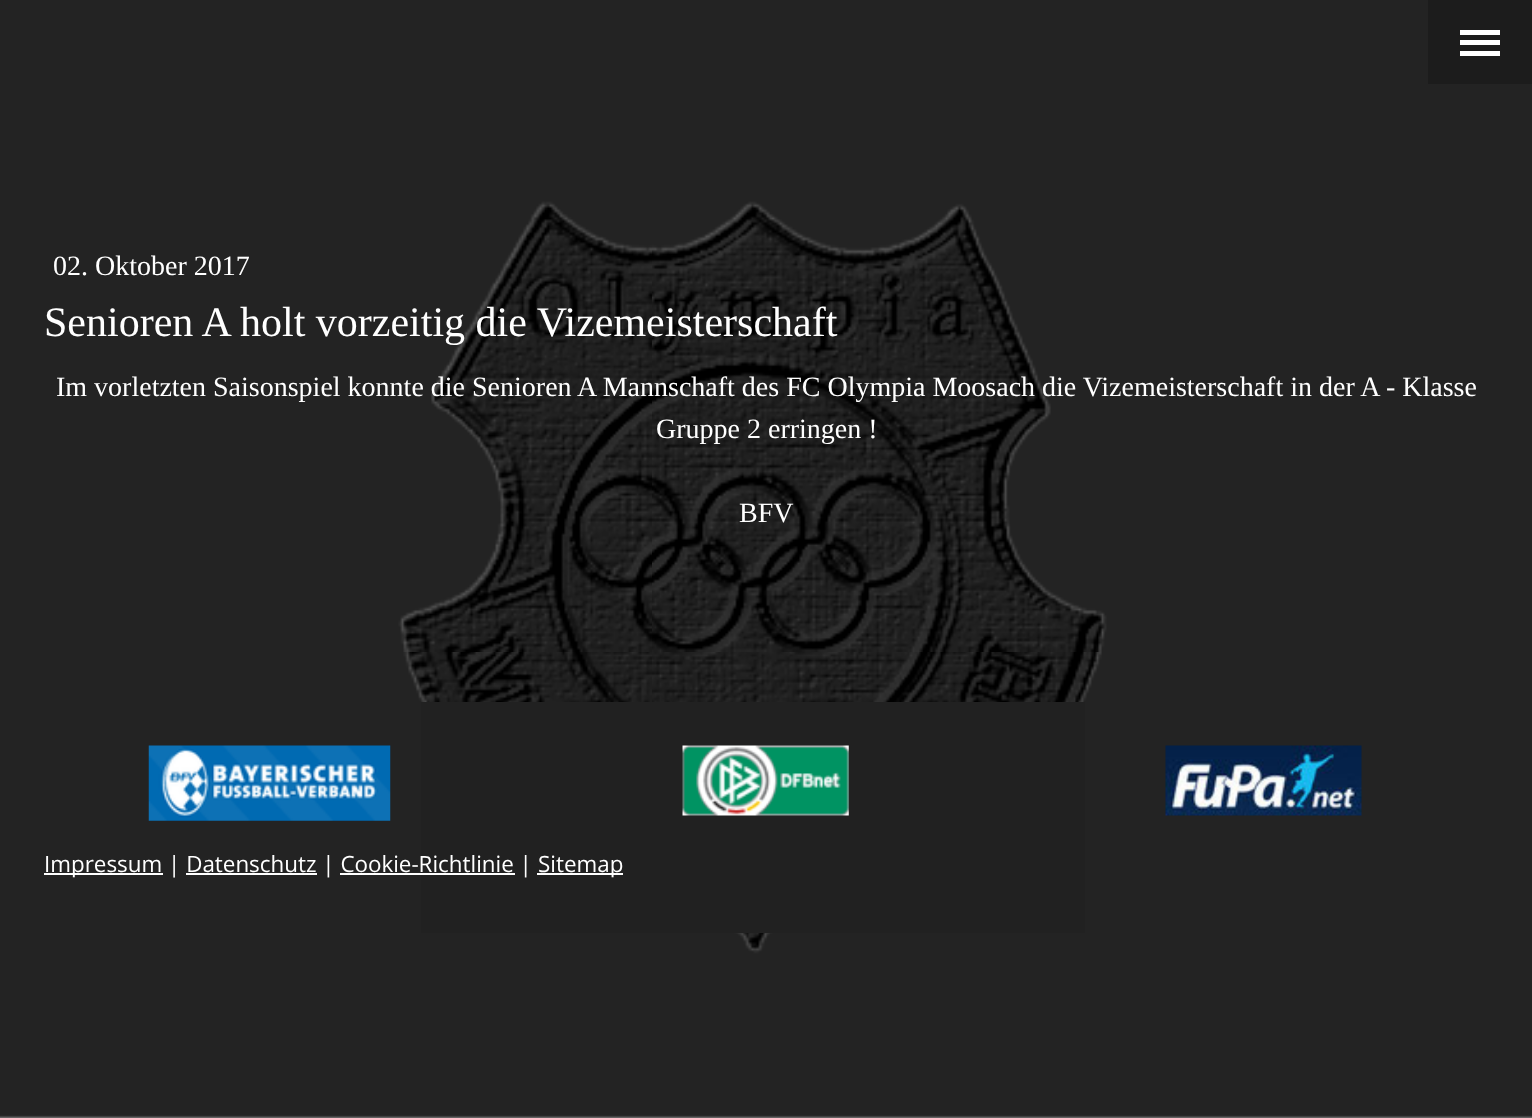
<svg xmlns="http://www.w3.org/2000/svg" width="1532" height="1118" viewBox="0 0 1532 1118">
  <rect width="100%" height="100%" fill="rgb(255,255,255)"/>
  <image x="0" y="0" width="1532" height="1118" href="pic1.png"/>
  <rect x="1428" y="0" width="104" height="84" fill="rgb(28,28,28)"/>
  <rect x="1460" y="40" width="40" height="5" fill="rgb(255,255,255)"/>
  <rect x="1460" y="30" width="40" height="5" fill="rgb(255,255,255)"/>
  <rect x="1460" y="51" width="40" height="5" fill="rgb(255,255,255)"/>
  <text x="53" y="275" font-family="Liberation Serif" font-size="28" fill="rgb(255,255,255)">02. Oktober 2017</text>
  <text x="44" y="336" font-family="Liberation Serif" font-size="42" fill="rgb(255,255,255)">Senioren A holt vorzeitig die Vizemeisterschaft</text>
  <g font-family="Liberation Serif" font-size="28" fill="rgb(255,255,255)">
    <text x="56" y="396">Im vorletzten Saisonspiel konnte die Senioren A Mannschaft des FC Olympia Moosach die Vizemeisterschaft in der A - Klasse</text>
    <text x="656" y="438">Gruppe 2 erringen !</text>
    <text x="739" y="522">BFV</text>
  </g>
  <rect x="421" y="702" width="664" height="231" fill="rgb(33,33,33)"/>
  <image x="148" y="745" width="243" height="76" href="pic2.png"/>
  <image x="682" y="745" width="167" height="71" href="pic3.png"/>
  <image x="1165" y="745" width="197" height="71" href="pic4.png"/>
  <rect x="44" y="873" width="119" height="2" fill="rgb(255,255,255)"/>
  <text x="44" y="872" font-family="Open Sans" font-size="22.4" fill="rgb(255,255,255)">Impressum | Datenschutz | Cookie-Richtlinie |</text>
  <rect x="537" y="873" width="86" height="2" fill="rgb(255,255,255)"/>
  <text x="538" y="872" font-family="Open Sans" font-size="22.4" fill="rgb(255,255,255)">Sitemap</text>
  <rect x="186" y="873" width="131" height="2" fill="rgb(255,255,255)"/>
  <rect x="340" y="873" width="175" height="2" fill="rgb(255,255,255)"/>
</svg>
